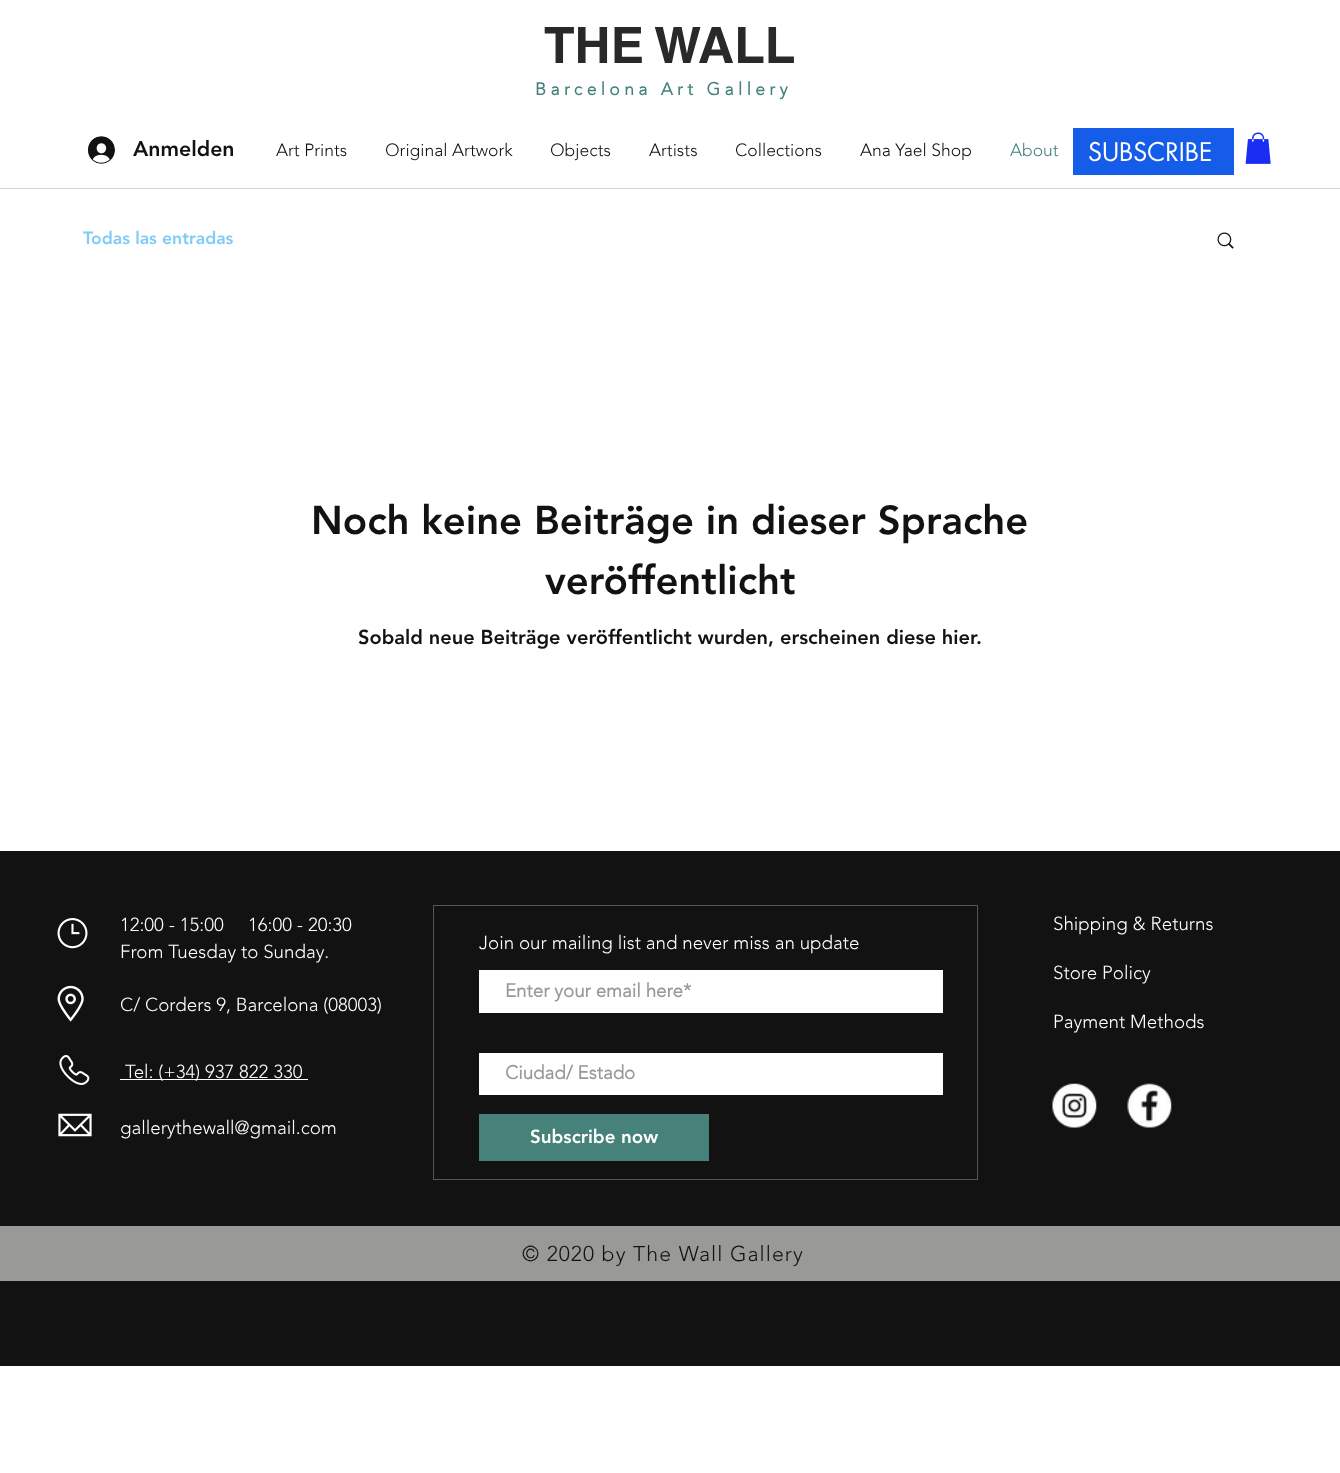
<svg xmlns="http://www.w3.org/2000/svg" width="1340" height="1473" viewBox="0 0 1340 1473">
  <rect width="100%" height="100%" fill="rgb(255,255,255)"/>
  <text x="544" y="63" font-family="helvetica" font-size="50" font-weight="bold" fill="rgb(41,41,41)">THE WALL</text>
  <text x="535" y="95" font-family="'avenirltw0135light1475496'" font-size="17.5" font-weight="bold" letter-spacing="4.4" fill="rgb(71,130,122)">Barcelona Art Gallery</text>
  <image x="88" y="136" width="27" height="28" href="pic1.png"/>
  <text x="133" y="156" font-family="'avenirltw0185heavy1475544'" font-size="21.25" font-weight="900" fill="rgb(18,18,18)">Anmelden</text>
  <g font-family="'avenirltw0135light1475496'" font-size="17.5" font-weight="300" fill="rgb(18,18,18)">
    <text x="276" y="156">Art Prints</text>
    <text x="385" y="156">Original Artwork</text>
    <text x="550" y="156">Objects</text>
    <text x="649" y="156">Artists</text>
    <text x="735" y="156">Collections</text>
    <text x="860" y="156">Ana Yael Shop</text>
  </g>
  <text x="1010" y="156" font-family="'avenirltw0135light1475496'" font-size="17.5" font-weight="300" fill="rgb(71,130,122)">About</text>
  <rect x="1073" y="128" width="161" height="47" fill="rgb(21,93,233)"/>
  <text x="1088" y="161" font-family="futura" font-size="25" fill="rgb(255,255,255)">SUBSCRIBE</text>
  <image x="1245" y="132" width="26" height="32" href="pic2.png"/>
  <rect x="0" y="188" width="1340" height="1" fill="rgb(212,212,212)"/>
  <text x="83" y="244" font-family="'avenirltw0185heavy1475544'" font-size="17.5" font-weight="900" fill="rgb(127,204,247)">Todas las entradas</text>
  <image x="1217" y="232" width="17" height="17" href="pic3.png"/>
  <g font-family="'avenirltw0185heavy1475544'" font-size="40" font-weight="900" fill="rgb(18,18,18)">
    <text x="311" y="534">Noch keine Beiträge in dieser Sprache</text>
    <text x="545" y="594">veröffentlicht</text>
  </g>
  <text x="358" y="644" font-family="'avenirltw0185heavy1475544'" font-size="20" font-weight="900" fill="rgb(18,18,18)">Sobald neue Beiträge veröffentlicht wurden, erscheinen diese hier.</text>
  <rect x="0" y="851" width="1340" height="515" fill="rgb(18,18,18)"/>
  <image x="57" y="918" width="31" height="31" href="pic4.png"/>
  <g font-family="'avenirltw0135light1475496'" font-size="18.75" font-weight="300" fill="rgb(255,255,255)">
    <text xml:space="preserve"><tspan x="120" y="931">12:00 - 15:00     16:00 - 20:30</tspan><tspan x="120" y="958">From Tuesday to Sunday.</tspan></text>
  </g>
  <image x="57" y="985" width="27" height="37" href="pic5.png"/>
  <text x="120" y="1011" font-family="'avenirltw0135light1475496'" font-size="18.75" font-weight="300" fill="rgb(255,255,255)">C/ Corders 9, Barcelona (08003)</text>
  <image x="59" y="1055" width="31" height="30" href="pic6.png"/>
  <rect x="120" y="1079" width="188" height="1" fill="rgb(255,255,255)"/>
  <text x="125" y="1078" font-family="'avenirltw0135light1475496'" font-size="18.75" font-weight="300" fill="rgb(255,255,255)">Tel: (+34) 937 822 330</text>
  <image x="58" y="1113" width="34" height="24" href="pic7.png"/>
  <text x="120" y="1134" font-family="'avenirltw0135light1475496'" font-size="18.75" font-weight="300" fill="rgb(255,255,255)">gallerythewall@gmail.com</text>
  <rect x="433.5" y="905.5" width="544" height="274" fill="none" stroke="rgb(87,87,87)"/>
  <text x="479" y="949" font-family="'avenirltw0135light1475496'" font-size="18.75" font-weight="300" fill="rgb(255,255,255)">Join our mailing list and never miss an update</text>
  <rect x="479" y="970" width="464" height="43" fill="rgb(255,255,255)"/>
  <text x="505" y="997" font-family="'avenirltw0135light1475496'" font-size="18.75" font-weight="bold" fill="rgb(153,153,151)">Enter your email here*</text>
  <rect x="479" y="1053" width="464" height="42" fill="rgb(255,255,255)"/>
  <text x="505" y="1079" font-family="'avenirltw0135light1475496'" font-size="18.75" font-weight="bold" fill="rgb(153,153,151)">Ciudad/ Estado</text>
  <rect x="479" y="1114" width="230" height="47" fill="rgb(71,130,122)"/>
  <text x="530" y="1143" font-family="'avenirltw0185heavy1475544'" font-size="18.75" font-weight="900" fill="rgb(255,255,255)">Subscribe now</text>
  <g font-family="'avenirltw0135light1475496'" font-size="18.75" font-weight="300" fill="rgb(255,255,255)">
    <text x="1053" y="930">Shipping &amp; Returns</text>
    <text x="1053" y="979">Store Policy</text>
    <text x="1053" y="1028">Payment Methods</text>
  </g>
  <image x="1052" y="1083" width="45" height="45" href="pic8.png"/>
  <image x="1127" y="1083" width="45" height="45" href="pic9.png"/>
  <rect x="0" y="1226" width="1340" height="55" fill="rgb(153,153,151)"/>
  <text x="522" y="1261" font-family="'avenirltw0135light1475496'" font-size="21.25" font-weight="300" letter-spacing="1.05" fill="rgb(18,18,18)">© 2020 by The Wall Gallery</text>
</svg>
